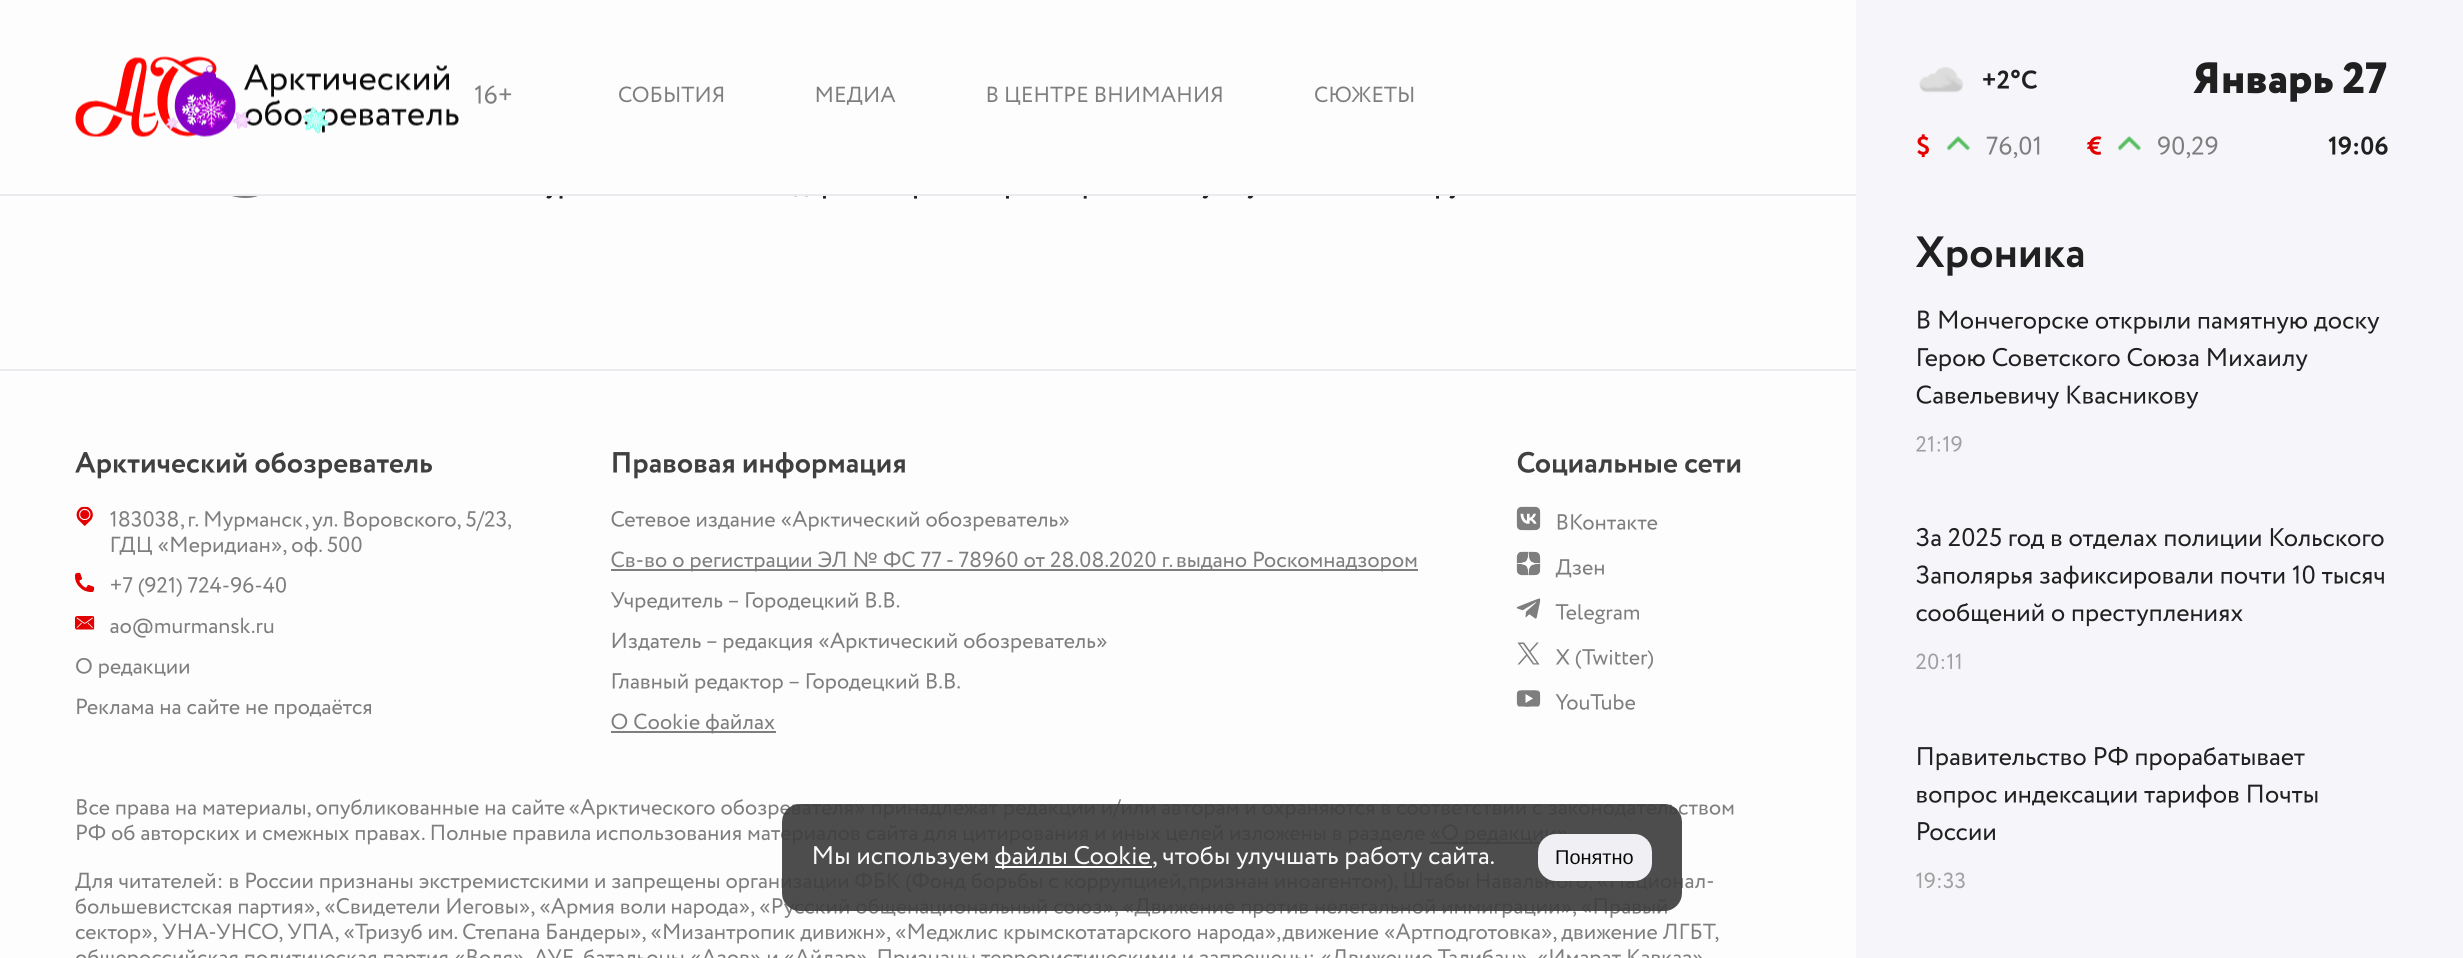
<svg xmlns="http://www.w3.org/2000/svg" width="2463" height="958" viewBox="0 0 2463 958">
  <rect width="100%" height="100%" fill="rgb(253,253,253)"/>
  <circle cx="245" cy="153" r="44" fill="none" stroke="rgb(126,126,126)" stroke-width="2"/>
  <rect x="200" y="108" width="90" height="86" fill="rgb(253,253,253)"/>
  <rect x="0" y="194" width="1856" height="2" fill="rgb(234,235,239)"/>
  <image x="75" y="56" width="384" height="81" href="pic1.png"/>
  <image x="475" y="85" width="37" height="19" href="pic2.png"/>
  <image x="619" y="86" width="105" height="17" href="pic3.png"/>
  <image x="816" y="86" width="80" height="19" href="pic4.png"/>
  <image x="987" y="86" width="235" height="19" href="pic5.png"/>
  <image x="1315" y="86" width="99" height="17" href="pic6.png"/>
  <rect x="1856" y="0" width="607" height="958" fill="rgb(246,246,250)"/>
  <image x="1919" y="67" width="45" height="26" href="pic7.png"/>
  <image x="1983" y="69" width="54" height="20" href="pic8.png"/>
  <image x="2193" y="62" width="194" height="40" href="pic9.png"/>
  <image x="1917" y="134" width="12" height="24" href="pic10.png"/>
  <image x="1946" y="136" width="24" height="15" href="pic11.png"/>
  <image x="1986" y="136" width="54" height="23" href="pic12.png"/>
  <image x="2087" y="136" width="15" height="19" href="pic13.png"/>
  <image x="2117" y="136" width="24" height="15" href="pic14.png"/>
  <image x="2158" y="136" width="60" height="23" href="pic15.png"/>
  <image x="2328" y="136" width="60" height="19" href="pic16.png"/>
  <image x="1916" y="236" width="168" height="40" href="pic17.png"/>
  <image x="1918" y="310" width="462" height="24" href="pic18.png"/>
  <image x="1918" y="347" width="390" height="25" href="pic19.png"/>
  <image x="1916" y="385" width="283" height="24" href="pic20.png"/>
  <image x="1916" y="436" width="46" height="16" href="pic21.png"/>
  <image x="1916" y="527" width="468" height="22" href="pic22.png"/>
  <image x="1916" y="565" width="468" height="24" href="pic23.png"/>
  <image x="1916" y="603" width="327" height="24" href="pic24.png"/>
  <image x="1916" y="653" width="45" height="17" href="pic25.png"/>
  <image x="1918" y="746" width="387" height="25" href="pic26.png"/>
  <image x="1917" y="784" width="401" height="24" href="pic27.png"/>
  <image x="1918" y="822" width="77" height="19" href="pic28.png"/>
  <image x="1916" y="872" width="49" height="17" href="pic29.png"/>
  <image x="546" y="196" width="910" height="3" href="pic30.png"/>
  <rect x="0" y="369" width="1856" height="2" fill="rgb(234,235,239)"/>
  <image x="75" y="451" width="357" height="28" href="pic31.png"/>
  <image x="76" y="506" width="17" height="20" href="pic32.png"/>
  <image x="110" y="511" width="68" height="16" href="pic33.png"/>
  <image x="181" y="524" width="3" height="6" href="pic34.png"/>
  <image x="189" y="511" width="114" height="20" href="pic35.png"/>
  <image x="305" y="524" width="4" height="6" href="pic36.png"/>
  <image x="312" y="511" width="194" height="20" href="pic37.png"/>
  <image x="508" y="524" width="3" height="6" href="pic34.png"/>
  <image x="111" y="536" width="251" height="21" href="pic38.png"/>
  <image x="75" y="572" width="20" height="20" href="pic39.png"/>
  <image x="111" y="577" width="175" height="20" href="pic40.png"/>
  <image x="75" y="616" width="20" height="14" href="pic41.png"/>
  <image x="110" y="617" width="164" height="21" href="pic42.png"/>
  <image x="76" y="658" width="113" height="20" href="pic43.png"/>
  <image x="77" y="698" width="294" height="21" href="pic44.png"/>
  <image x="613" y="452" width="292" height="27" href="pic45.png"/>
  <image x="611" y="511" width="458" height="20" href="pic46.png"/>
  <rect x="611" y="569" width="807" height="2" fill="rgb(126,126,126)"/>
  <image x="611" y="551" width="342" height="21" href="pic47.png"/>
  <image x="959" y="551" width="214" height="17" href="pic48.png"/>
  <image x="1177" y="551" width="240" height="21" href="pic49.png"/>
  <image x="611" y="592" width="289" height="20" href="pic50.png"/>
  <image x="612" y="632" width="495" height="21" href="pic51.png"/>
  <image x="612" y="673" width="348" height="20" href="pic52.png"/>
  <rect x="611" y="731" width="165" height="2" fill="rgb(126,126,126)"/>
  <image x="611" y="713" width="164" height="21" href="pic53.png"/>
  <image x="1517" y="451" width="224" height="25" href="pic54.png"/>
  <image x="1516" y="506" width="25" height="25" href="pic55.png"/>
  <image x="1557" y="514" width="101" height="16" href="pic56.png"/>
  <image x="1516" y="551" width="25" height="25" href="pic57.png"/>
  <image x="1555" y="559" width="49" height="19" href="pic58.png"/>
  <image x="1516" y="598" width="25" height="21" href="pic59.png"/>
  <image x="1555" y="604" width="84" height="20" href="pic60.png"/>
  <image x="1517" y="642" width="23" height="23" href="pic61.png"/>
  <image x="1556" y="649" width="97" height="20" href="pic62.png"/>
  <image x="1516" y="690" width="25" height="17" href="pic63.png"/>
  <image x="1555" y="694" width="80" height="16" href="pic64.png"/>
  <image x="77" y="799" width="488" height="20" href="pic65.png"/>
  <image x="569" y="799" width="587" height="20" href="pic66.png"/>
  <image x="1161" y="804" width="573" height="15" href="pic67.png"/>
  <image x="77" y="824" width="513" height="21" href="pic68.png"/>
  <image x="597" y="825" width="564" height="20" href="pic69.png"/>
  <image x="1167" y="825" width="258" height="20" href="pic70.png"/>
  <rect x="1430" y="842" width="138" height="2" fill="rgb(126,126,126)"/>
  <image x="1430" y="824" width="138" height="21" href="pic71.png"/>
  <rect x="1568" y="837" width="3" height="3" fill="rgb(126,126,126)"/>
  <image x="75" y="872" width="1111" height="21" href="pic72.png"/>
  <image x="1189" y="872" width="524" height="21" href="pic73.png"/>
  <image x="75" y="898" width="590" height="20" href="pic74.png"/>
  <image x="672" y="898" width="995" height="20" href="pic75.png"/>
  <image x="75" y="928" width="82" height="16" href="pic76.png"/>
  <image x="162" y="923" width="1119" height="21" href="pic77.png"/>
  <image x="1282" y="923" width="437" height="21" href="pic78.png"/>
  <image x="76" y="949" width="702" height="9" href="pic79.png"/>
  <image x="785" y="949" width="917" height="9" href="pic80.png"/>
  <rect x="782" y="804" width="900" height="107" rx="18" fill="rgba(62,62,62,0.92)"/>
  <image x="814" y="846" width="174" height="24" href="pic81.png"/>
  <rect x="995" y="866" width="157" height="2" fill="rgb(255,255,255)"/>
  <image x="995" y="845" width="156" height="25" href="pic82.png"/>
  <image x="1153" y="846" width="341" height="24" href="pic83.png"/>
  <rect x="1538" y="834" width="114" height="47" rx="18" fill="rgba(246,246,250,0.97)"/>
  <text x="1555" y="864" font-family="Liberation Sans" font-size="20" fill="rgb(8,8,8)">Понятно</text>
</svg>
